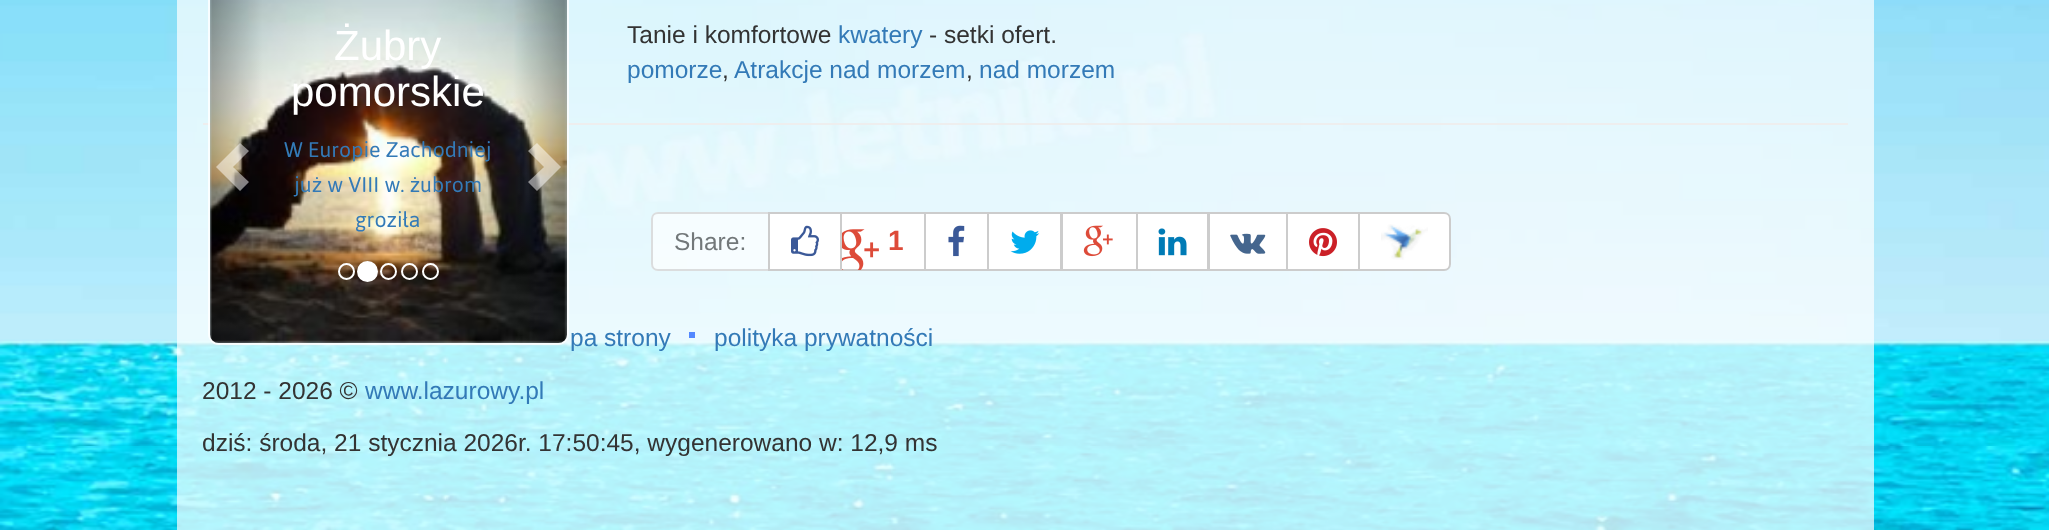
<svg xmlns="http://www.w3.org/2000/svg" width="2049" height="530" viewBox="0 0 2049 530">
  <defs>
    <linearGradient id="g1" gradientUnits="userSpaceOnUse" x1="210" y1="164" x2="263" y2="164"><stop offset="0" stop-color="rgb(0,0,0)" stop-opacity="0.25"/><stop offset="1" stop-color="rgb(0,0,0)" stop-opacity="0"/></linearGradient>
    <linearGradient id="g2" gradientUnits="userSpaceOnUse" x1="513" y1="164" x2="567" y2="164"><stop offset="0" stop-color="rgb(0,0,0)" stop-opacity="0"/><stop offset="1" stop-color="rgb(0,0,0)" stop-opacity="0.25"/></linearGradient>
  </defs>
  <rect width="100%" height="100%" fill="rgb(255,255,255)"/>
  <image x="0" y="0" width="2049" height="530" href="pic1.png"/>
  <rect x="177" y="0" width="1697" height="530" fill="rgba(255,255,255,0.7)"/>
  <rect x="203" y="123" width="1645" height="2" fill="rgb(238,238,238)"/>
  <rect x="209" y="-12" width="359" height="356" rx="10" fill="none" stroke="rgba(255,255,255,0.8)" stroke-width="2"/>
  <image x="210" y="0" width="357" height="343" href="pic2.png"/>
  <path d="M219-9H263V343H219C214 343 210 339 210 334V0C210-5 214-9 219-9Z" fill="url(#g1)"/>
  <path d="M249 151L233 167L249 182L240 191L216 167L240 143Z" fill="rgba(255,255,255,0.5)"/>
  <g font-family="Liberation Sans" font-size="42" fill="rgb(255,255,255)">
    <text x="334" y="60">Żubry</text>
    <text x="291" y="106">pomorskie</text>
  </g>
  <g font-family="Jaldi" font-size="24.5" fill="rgb(51,122,183)">
    <text x="284" y="157">W Europie Zachodniej</text>
    <text x="294" y="192">już w VIII w. żubrom</text>
    <text x="355" y="227">groziła</text>
  </g>
  <path d="M513-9H558C563-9 567-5 567 0V334C567 339 563 343 558 343H513Z" fill="url(#g2)"/>
  <path d="M561 167L537 191L528 182L544 167L528 151L537 143Z" fill="rgba(255,255,255,0.5)"/>
  <circle cx="346.5" cy="271.5" r="7.5" fill="none" stroke="rgb(255,255,255)" stroke-width="2"/>
  <circle cx="367.5" cy="271.5" r="9.5" fill="rgb(255,255,255)" stroke="rgb(255,255,255)" stroke-width="2"/>
  <circle cx="388.5" cy="271.5" r="7.5" fill="none" stroke="rgb(255,255,255)" stroke-width="2"/>
  <circle cx="409.5" cy="271.5" r="7.5" fill="none" stroke="rgb(255,255,255)" stroke-width="2"/>
  <circle cx="430.5" cy="271.5" r="7.5" fill="none" stroke="rgb(255,255,255)" stroke-width="2"/>
  <text x="627" y="43" font-family="Liberation Sans" font-size="24.5" fill="rgb(51,51,51)">Tanie i komfortowe</text>
  <text x="838" y="43" font-family="Liberation Sans" font-size="24.5" fill="rgb(51,122,183)">kwatery</text>
  <text x="929" y="43" font-family="Liberation Sans" font-size="24.5" fill="rgb(51,51,51)">- setki ofert.</text>
  <text x="627" y="78" font-family="Liberation Sans" font-size="24.5" fill="rgb(51,122,183)">pomorze</text>
  <text x="722" y="78" font-family="Liberation Sans" font-size="24.5" fill="rgb(51,51,51)">,</text>
  <text x="734" y="78" font-family="Liberation Sans" font-size="24.5" fill="rgb(51,122,183)">Atrakcje nad morzem</text>
  <text x="966" y="78" font-family="Liberation Sans" font-size="24.5" fill="rgb(51,51,51)">,</text>
  <text x="979" y="78" font-family="Liberation Sans" font-size="24.5" fill="rgb(51,122,183)">nad morzem</text>
  <path d="M658 212H770V271H658C654 271 651 268 651 264V219C651 215 654 212 658 212Z" fill="rgba(255,255,255,0.65)"/>
  <path d="M658 213H769V270H658C654.5 270 652 267.5 652 264V219C652 215.5 654.5 213 658 213Z" fill="none" stroke="rgba(204,204,204,0.65)" stroke-width="2"/>
  <text x="674" y="250" font-family="Liberation Sans" font-size="24.5" fill="rgb(114,120,122)">Share:</text>
  <rect x="769" y="213" width="72" height="57" fill="rgb(255,255,255)" stroke="rgb(204,204,204)" stroke-width="2"/>
  <image x="791" y="225" width="28" height="32" href="pic3.png"/>
  <rect x="841" y="213" width="84" height="57" fill="rgb(255,255,255)" stroke="rgb(204,204,204)" stroke-width="2"/>
  <image x="842" y="229" width="37" height="41" href="pic4.png"/>
  <text x="888" y="250" font-family="Liberation Sans" font-size="28" font-weight="bold" fill="rgb(221,75,57)">1</text>
  <rect x="925" y="213" width="63" height="57" fill="rgb(255,255,255)" stroke="rgb(204,204,204)" stroke-width="2"/>
  <image x="948" y="225" width="17" height="32" href="pic5.png"/>
  <rect x="988" y="213" width="73" height="57" fill="rgb(255,255,255)" stroke="rgb(204,204,204)" stroke-width="2"/>
  <image x="1010" y="230" width="30" height="24" href="pic6.png"/>
  <rect x="1062" y="213" width="75" height="57" fill="rgb(255,255,255)" stroke="rgb(204,204,204)" stroke-width="2"/>
  <image x="1083" y="225" width="30" height="32" href="pic7.png"/>
  <rect x="1137" y="213" width="71" height="57" fill="rgb(255,255,255)" stroke="rgb(204,204,204)" stroke-width="2"/>
  <image x="1158" y="228" width="29" height="28" href="pic8.png"/>
  <rect x="1209" y="213" width="78" height="57" fill="rgb(255,255,255)" stroke="rgb(204,204,204)" stroke-width="2"/>
  <image x="1230" y="233" width="36" height="21" href="pic9.png"/>
  <rect x="1287" y="213" width="72" height="57" fill="rgb(255,255,255)" stroke="rgb(204,204,204)" stroke-width="2"/>
  <image x="1309" y="228" width="28" height="29" href="pic10.png"/>
  <path d="M1359 213H1444C1447.5 213 1450 215.5 1450 219V264C1450 267.5 1447.5 270 1444 270H1359Z" fill="rgb(255,255,255)" stroke="rgb(204,204,204)" stroke-width="2"/>
  <image x="1381" y="224" width="47" height="36" href="pic11.png"/>
  <text x="570" y="346" font-family="Liberation Sans" font-size="24.5" fill="rgb(51,122,183)">pa strony</text>
  <rect x="689" y="332" width="6" height="6" fill="rgb(83,136,255)"/>
  <text x="714" y="346" font-family="Liberation Sans" font-size="24.5" fill="rgb(51,122,183)">polityka prywatności</text>
  <text x="202" y="399" font-family="Liberation Sans" font-size="24.5" fill="rgb(51,51,51)">2012 - 2026 ©</text>
  <text x="365" y="399" font-family="Liberation Sans" font-size="24.5" fill="rgb(51,122,183)">www.lazurowy.pl</text>
  <text x="202" y="451" font-family="Liberation Sans" font-size="24.5" fill="rgb(51,51,51)">dziś: środa, 21 stycznia 2026r. 17:50:45, wygenerowano w: 12,9 ms</text>
</svg>
